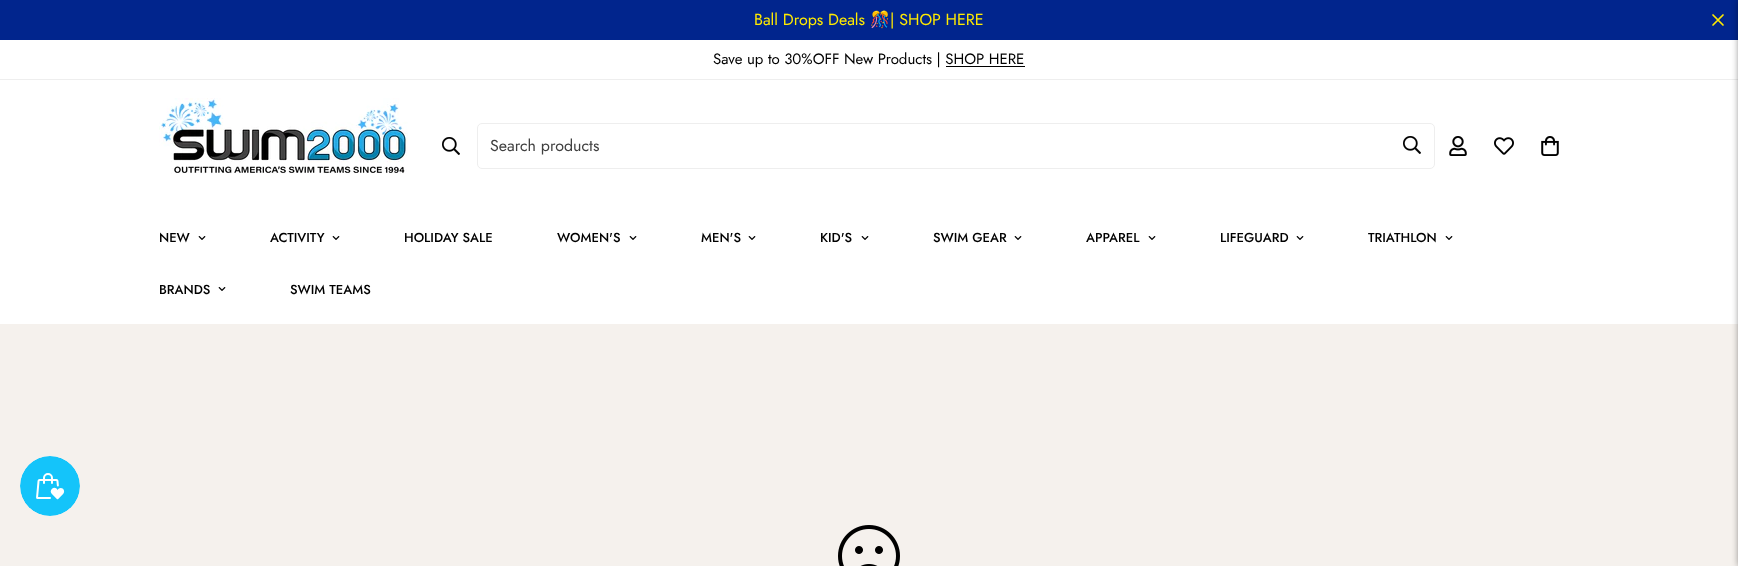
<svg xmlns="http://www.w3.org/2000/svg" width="1738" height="566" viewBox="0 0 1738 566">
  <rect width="100%" height="100%" fill="rgb(255,255,255)"/>
  <rect x="0" y="0" width="1738" height="40" fill="rgb(1,37,141)"/>
  <text x="754" y="25" font-family="Jost" font-size="16" fill="rgb(255,234,0)">Ball Drops Deals</text>
  <text x="870" y="25" font-family="Noto Color Emoji" font-size="16" fill="rgb(255,234,0)">🎊</text>
  <text x="890" y="25" font-family="Jost" font-size="16" fill="rgb(255,234,0)">| SHOP HERE</text>
  <path d="M1713 25L1723 15M1713 15L1723 25" fill="none" stroke="rgb(255,234,0)" stroke-width="1.7" stroke-linecap="round" stroke-linejoin="round"/>
  <rect x="0" y="79" width="1738" height="1" fill="rgb(238,238,238)"/>
  <rect x="0" y="324" width="1738" height="242" fill="rgb(245,241,237)"/>
  <rect x="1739" y="0" width="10" height="566" fill="rgba(0,0,0,0.5)" filter="blur(3.5px)"/>
  <text x="713" y="64" font-family="Jost" font-size="15" fill="rgb(0,0,0)">Save up to 30%OFF New Products | SHOP HERE</text>
  <rect x="946" y="66" width="79" height="1" fill="rgb(0,0,0)"/>
  <image x="159" y="98" width="249" height="76" href="pic1.png"/>
  <image x="442" y="137" width="18" height="18" href="pic2.png"/>
  <rect x="477.5" y="123.5" width="957" height="45" rx="4.5" fill="none" stroke="rgb(238,238,238)"/>
  <text x="490" y="151" font-family="Jost" font-size="16" fill="rgb(64,64,64)">Search products</text>
  <image x="1403" y="136" width="18" height="18" href="pic2.png"/>
  <image x="1449" y="136" width="18" height="20" href="pic3.png"/>
  <image x="1494" y="137" width="20" height="18" href="pic4.png"/>
  <image x="1541" y="136" width="18" height="20" href="pic5.png"/>
  <text x="159" y="242" font-family="Jost" font-size="13" font-weight="500" fill="rgb(0,0,0)">NEW</text>
  <image x="198" y="236" width="8" height="4" href="pic6.png"/>
  <text x="270" y="242" font-family="Jost" font-size="13" font-weight="500" fill="rgb(0,0,0)">ACTIVITY</text>
  <image x="332" y="236" width="8" height="4" href="pic6.png"/>
  <g font-family="Jost" font-size="13" font-weight="500" fill="rgb(0,0,0)">
    <text x="404" y="242">HOLIDAY SALE</text>
    <text x="557" y="242">WOMEN'S</text>
  </g>
  <image x="629" y="236" width="8" height="4" href="pic6.png"/>
  <text x="701" y="242" font-family="Jost" font-size="13" font-weight="500" fill="rgb(0,0,0)">MEN'S</text>
  <image x="748" y="236" width="8" height="4" href="pic6.png"/>
  <text x="820" y="242" font-family="Jost" font-size="13" font-weight="500" fill="rgb(0,0,0)">KID'S</text>
  <image x="861" y="236" width="8" height="4" href="pic6.png"/>
  <text x="933" y="242" font-family="Jost" font-size="13" font-weight="500" fill="rgb(0,0,0)">SWIM GEAR</text>
  <image x="1014" y="236" width="8" height="4" href="pic6.png"/>
  <text x="1086" y="242" font-family="Jost" font-size="13" font-weight="500" fill="rgb(0,0,0)">APPAREL</text>
  <image x="1148" y="236" width="8" height="4" href="pic6.png"/>
  <text x="1220" y="242" font-family="Jost" font-size="13" font-weight="500" fill="rgb(0,0,0)">LIFEGUARD</text>
  <image x="1296" y="236" width="8" height="4" href="pic6.png"/>
  <text x="1368" y="242" font-family="Jost" font-size="13" font-weight="500" fill="rgb(0,0,0)">TRIATHLON</text>
  <image x="1445" y="236" width="8" height="4" href="pic6.png"/>
  <text x="159" y="294" font-family="Jost" font-size="13" font-weight="500" fill="rgb(0,0,0)">BRANDS</text>
  <image x="218" y="287" width="8" height="4" href="pic6.png"/>
  <text x="290" y="294" font-family="Jost" font-size="13" font-weight="500" fill="rgb(0,0,0)">SWIM TEAMS</text>
  <image x="838" y="525" width="62" height="41" href="pic7.png"/>
  <image x="20" y="456" width="60" height="60" href="pic8.png"/>
</svg>
